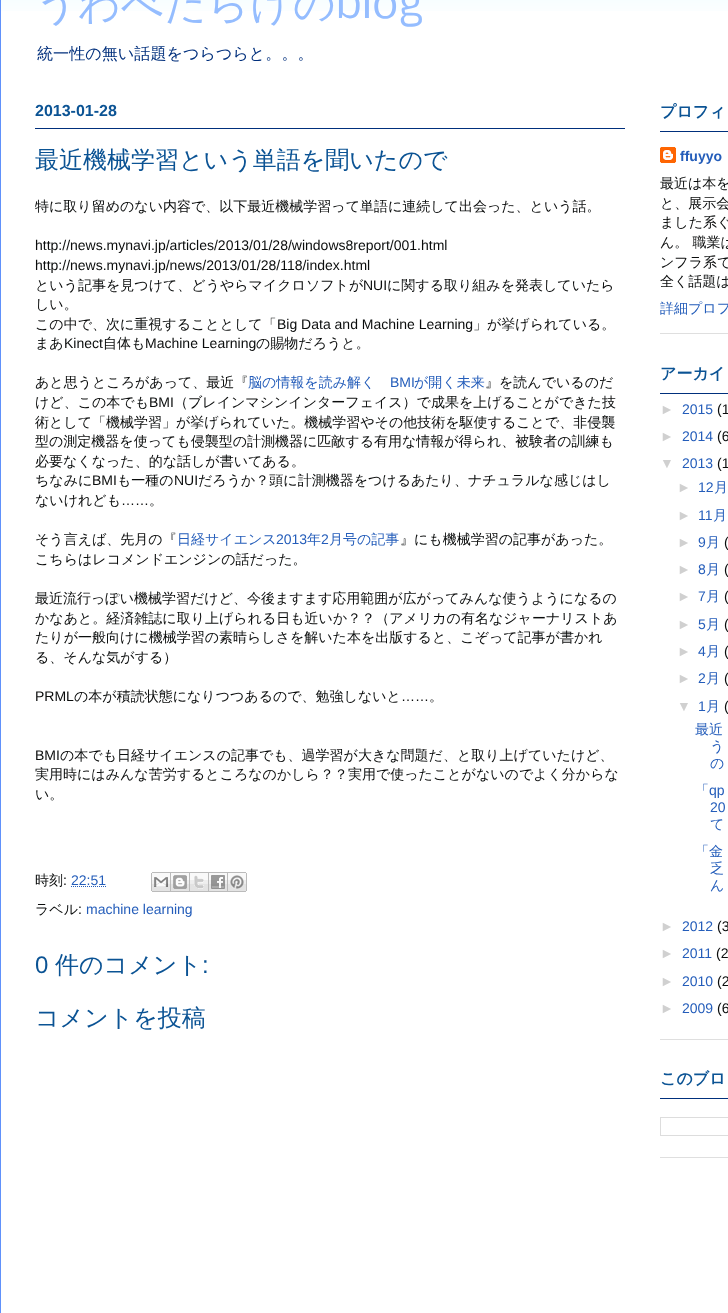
<svg xmlns="http://www.w3.org/2000/svg" width="728" height="1313" viewBox="0 0 728 1313">
  <rect width="100%" height="100%" fill="rgb(255,255,255)"/>
  <image x="1" y="0" width="727" height="11" href="pic1.png"/>
  <rect x="0" y="0" width="1" height="1313" fill="rgb(96,145,251)"/>
  <text x="35" y="18" font-family="WenQuanYi Zen Hei" font-size="42" font-weight="500" fill="rgb(149,189,255)">うわべだらけの</text>
  <text x="336" y="18" font-family="Nobile" font-size="42" fill="rgb(149,189,255)">blog</text>
  <text x="37" y="59" font-family="WenQuanYi Zen Hei" font-size="16.1" font-weight="500" fill="rgb(0,47,124)">統一性の無い話題をつらつらと。。。</text>
  <rect x="35" y="128" width="590" height="1" fill="rgb(0,47,124)"/>
  <text x="35" y="116" font-family="Liberation Sans" font-size="16" font-weight="bold" fill="rgb(11,83,148)">2013-01-28</text>
  <text x="35" y="168" font-family="WenQuanYi Zen Hei" font-size="24" font-weight="500" fill="rgb(11,83,148)">最近機械学習という単語を聞いたので</text>
  <text x="35" y="211" font-family="WenQuanYi Zen Hei" font-size="14" font-weight="500" fill="rgb(10,12,12)">特に取り留めのない内容で、以下最近機械学習って単語に連続して出会った、という話。</text>
  <g font-family="Liberation Sans" font-size="14" fill="rgb(10,12,12)">
    <text>
      <tspan x="35" y="250">http://news.mynavi.jp/articles/2013/01/28/windows8report/001.html</tspan>
      <tspan x="35" y="270">http://news.mynavi.jp/news/2013/01/28/118/index.html</tspan>
    </text>
  </g>
  <text x="35" y="290" font-family="WenQuanYi Zen Hei" font-size="14" font-weight="500" fill="rgb(10,12,12)">という記事を見つけて、どうやらマイクロソフトが</text>
  <text x="363" y="290" font-family="Liberation Sans" font-size="14" fill="rgb(10,12,12)">NUI</text>
  <g font-family="WenQuanYi Zen Hei" font-size="14" font-weight="500" fill="rgb(10,12,12)">
    <text x="387" y="290">に関する取り組みを発表していたら</text>
    <text>
      <tspan x="35" y="309">しい。</tspan>
      <tspan x="35" y="329">この中で、次に重視することとして「</tspan>
    </text>
  </g>
  <text x="277" y="329" font-family="Liberation Sans" font-size="14" fill="rgb(10,12,12)">Big Data and Machine Learning</text>
  <g font-family="WenQuanYi Zen Hei" font-size="14" font-weight="500" fill="rgb(10,12,12)">
    <text x="473" y="329">」が挙げられている。</text>
    <text x="35" y="348">まあ</text>
  </g>
  <text x="64" y="348" font-family="Liberation Sans" font-size="14" fill="rgb(10,12,12)">Kinect</text>
  <text x="103" y="348" font-family="WenQuanYi Zen Hei" font-size="14" font-weight="500" fill="rgb(10,12,12)">自体も</text>
  <text x="145" y="348" font-family="Liberation Sans" font-size="14" fill="rgb(10,12,12)">Machine Learning</text>
  <g font-family="WenQuanYi Zen Hei" font-size="14" font-weight="500" fill="rgb(10,12,12)">
    <text x="256" y="348">の賜物だろうと。</text>
    <text x="35" y="387">あと思うところがあって、最近『</text>
  </g>
  <text x="248" y="387" font-family="WenQuanYi Zen Hei" font-size="14" font-weight="500" fill="rgb(36,93,186)">脳の情報を読み解く</text>
  <text x="390" y="387" font-family="Liberation Sans" font-size="14" fill="rgb(36,93,186)">BMI</text>
  <text x="414" y="387" font-family="WenQuanYi Zen Hei" font-size="14" font-weight="500" fill="rgb(36,93,186)">が開く未来</text>
  <g font-family="WenQuanYi Zen Hei" font-size="14" font-weight="500" fill="rgb(10,12,12)">
    <text x="485" y="387">』を読んでいるのだ</text>
    <text x="35" y="407">けど、この本でも</text>
  </g>
  <text x="149" y="407" font-family="Liberation Sans" font-size="14" fill="rgb(10,12,12)">BMI</text>
  <g font-family="WenQuanYi Zen Hei" font-size="14" font-weight="500" fill="rgb(10,12,12)">
    <text x="174" y="407">（ブレインマシンインターフェイス）で成果を上げることができた技</text>
    <text>
      <tspan x="35" y="427">術として「機械学習」が挙げられていた。機械学習やその他技術を駆使することで、非侵襲</tspan>
      <tspan x="35" y="446">型の測定機器を使っても侵襲型の計測機器に匹敵する有用な情報が得られ、被験者の訓練も</tspan>
      <tspan x="35" y="466">必要なくなった、的な話しが書いてある。</tspan>
      <tspan x="35" y="485">ちなみに</tspan>
    </text>
  </g>
  <text x="92" y="485" font-family="Liberation Sans" font-size="14" fill="rgb(10,12,12)">BMI</text>
  <text x="117" y="485" font-family="WenQuanYi Zen Hei" font-size="14" font-weight="500" fill="rgb(10,12,12)">も一種の</text>
  <text x="174" y="485" font-family="Liberation Sans" font-size="14" fill="rgb(10,12,12)">NUI</text>
  <g font-family="WenQuanYi Zen Hei" font-size="14" font-weight="500" fill="rgb(10,12,12)">
    <text x="198" y="485">だろうか？頭に計測機器をつけるあたり、ナチュラルな感じはし</text>
    <text x="35" y="505">ないけれども</text>
  </g>
  <text x="121" y="505" font-family="Liberation Sans" font-size="14" fill="rgb(10,12,12)">……</text>
  <g font-family="WenQuanYi Zen Hei" font-size="14" font-weight="500" fill="rgb(10,12,12)">
    <text x="149" y="505">。</text>
    <text x="35" y="544">そう言えば、先月の『</text>
  </g>
  <text x="177" y="544" font-family="WenQuanYi Zen Hei" font-size="14" font-weight="500" fill="rgb(36,93,186)">日経サイエンス</text>
  <text x="276" y="544" font-family="Liberation Sans" font-size="14" fill="rgb(36,93,186)">2013</text>
  <text x="307" y="544" font-family="WenQuanYi Zen Hei" font-size="14" font-weight="500" fill="rgb(36,93,186)">年</text>
  <text x="321" y="544" font-family="Liberation Sans" font-size="14" fill="rgb(36,93,186)">2</text>
  <text x="329" y="544" font-family="WenQuanYi Zen Hei" font-size="14" font-weight="500" fill="rgb(36,93,186)">月号の記事</text>
  <g font-family="WenQuanYi Zen Hei" font-size="14" font-weight="500" fill="rgb(10,12,12)">
    <text x="400" y="544">』にも機械学習の記事があった。</text>
    <text x="35" y="564">こちらはレコメンドエンジンの話だった。</text>
    <text>
      <tspan x="35" y="603">最近流行っぽい機械学習だけど、今後ますます応用範囲が広がってみんな使うようになるの</tspan>
      <tspan x="35" y="623">かなあと。経済雑誌に取り上げられる日も近いか？？（アメリカの有名なジャーナリストあ</tspan>
      <tspan x="35" y="642">たりが一般向けに機械学習の素晴らしさを解いた本を出版すると、こぞって記事が書かれ</tspan>
      <tspan x="35" y="662">る、そんな気がする）</tspan>
    </text>
  </g>
  <text x="35" y="701" font-family="Liberation Sans" font-size="14" fill="rgb(10,12,12)">PRML</text>
  <text x="74" y="701" font-family="WenQuanYi Zen Hei" font-size="14" font-weight="500" fill="rgb(10,12,12)">の本が積読状態になりつつあるので、勉強しないと</text>
  <text x="401" y="701" font-family="Liberation Sans" font-size="14" fill="rgb(10,12,12)">……</text>
  <text x="429" y="701" font-family="WenQuanYi Zen Hei" font-size="14" font-weight="500" fill="rgb(10,12,12)">。</text>
  <text x="35" y="760" font-family="Liberation Sans" font-size="14" fill="rgb(10,12,12)">BMI</text>
  <g font-family="WenQuanYi Zen Hei" font-size="14" font-weight="500" fill="rgb(10,12,12)">
    <text x="60" y="760">の本でも日経サイエンスの記事でも、過学習が大きな問題だ、と取り上げていたけど、</text>
    <text>
      <tspan x="35" y="779">実用時にはみんな苦労するところなのかしら？？実用で使ったことがないのでよく分からな</tspan>
      <tspan x="35" y="799">い。</tspan>
    </text>
    <text x="35" y="885">時刻</text>
  </g>
  <text x="63" y="885" font-family="Liberation Sans" font-size="14" fill="rgb(10,12,12)">:</text>
  <text x="71" y="885" font-family="Liberation Sans" font-size="14" fill="rgb(36,93,186)">22:51</text>
  <path d="M71 886.5H106" fill="none" stroke="rgb(36,93,186)" stroke-dasharray="1 1"/>
  <image x="151" y="872" width="20" height="20" href="pic2.png"/>
  <image x="171" y="872" width="19" height="20" href="pic3.png"/>
  <image x="190" y="872" width="19" height="20" href="pic4.png"/>
  <image x="209" y="872" width="19" height="20" href="pic5.png"/>
  <image x="228" y="872" width="19" height="20" href="pic6.png"/>
  <text x="35" y="914" font-family="WenQuanYi Zen Hei" font-size="14" font-weight="500" fill="rgb(10,12,12)">ラベル</text>
  <text x="78" y="914" font-family="Liberation Sans" font-size="14" fill="rgb(10,12,12)">:</text>
  <text x="86" y="914" font-family="Liberation Sans" font-size="14" fill="rgb(36,93,186)">machine learning</text>
  <text x="35" y="973" font-family="Liberation Sans" font-size="24" fill="rgb(11,83,148)">0</text>
  <text x="55" y="973" font-family="WenQuanYi Zen Hei" font-size="24" font-weight="500" fill="rgb(11,83,148)">件のコメント</text>
  <text x="202" y="973" font-family="Liberation Sans" font-size="24" fill="rgb(11,83,148)">:</text>
  <text x="35" y="1026" font-family="WenQuanYi Zen Hei" font-size="24" font-weight="500" fill="rgb(11,83,148)">コメントを投稿</text>
  <rect x="660" y="333" width="68" height="1" fill="rgb(223,223,223)"/>
  <rect x="660" y="131" width="68" height="1" fill="rgb(0,47,124)"/>
  <text x="660" y="117" font-family="WenQuanYi Zen Hei" font-size="16" font-weight="bold" fill="rgb(11,83,148)">プロフィ</text>
  <image x="660" y="147" width="16" height="16" href="pic7.png"/>
  <text x="680" y="161" font-family="Liberation Sans" font-size="14" font-weight="bold" fill="rgb(36,93,186)">ffuyyo</text>
  <g font-family="WenQuanYi Zen Hei" font-size="14" font-weight="500" fill="rgb(10,12,12)">
    <text>
      <tspan x="660" y="188">最近は本を</tspan>
      <tspan x="660" y="208">と、展示会</tspan>
      <tspan x="660" y="227">ました系ぐ</tspan>
      <tspan x="660" y="247">ん。 職業は</tspan>
      <tspan x="660" y="267">ンフラ系で</tspan>
      <tspan x="660" y="286">全く話題は</tspan>
    </text>
  </g>
  <text x="660" y="313" font-family="WenQuanYi Zen Hei" font-size="14" font-weight="500" fill="rgb(36,93,186)">詳細プロフ</text>
  <rect x="660" y="1039" width="68" height="1" fill="rgb(223,223,223)"/>
  <rect x="660" y="393" width="68" height="1" fill="rgb(0,47,124)"/>
  <text x="660" y="379" font-family="WenQuanYi Zen Hei" font-size="16" font-weight="bold" fill="rgb(11,83,148)">アーカイ</text>
  <text x="660" y="414" font-family="Liberation Sans" font-size="14" fill="rgb(208,208,208)">►</text>
  <text x="682" y="414" font-family="Liberation Sans" font-size="14" fill="rgb(36,93,186)">2015</text>
  <text x="717" y="414" font-family="Liberation Sans" font-size="14" fill="rgb(10,12,12)">(1</text>
  <text x="660" y="441" font-family="Liberation Sans" font-size="14" fill="rgb(208,208,208)">►</text>
  <text x="682" y="441" font-family="Liberation Sans" font-size="14" fill="rgb(36,93,186)">2014</text>
  <text x="717" y="441" font-family="Liberation Sans" font-size="14" fill="rgb(10,12,12)">(6</text>
  <text x="660" y="468" font-family="Liberation Sans" font-size="14" fill="rgb(208,208,208)">▼</text>
  <text x="682" y="468" font-family="Liberation Sans" font-size="14" fill="rgb(36,93,186)">2013</text>
  <text x="717" y="468" font-family="Liberation Sans" font-size="14" fill="rgb(10,12,12)">(1</text>
  <text x="677" y="492" font-family="Liberation Sans" font-size="14" fill="rgb(208,208,208)">►</text>
  <text x="698" y="492" font-family="Liberation Sans" font-size="14" fill="rgb(36,93,186)">12</text>
  <text x="714" y="492" font-family="WenQuanYi Zen Hei" font-size="14" font-weight="500" fill="rgb(36,93,186)">月</text>
  <text x="677" y="520" font-family="Liberation Sans" font-size="14" fill="rgb(208,208,208)">►</text>
  <text x="698" y="520" font-family="Liberation Sans" font-size="14" fill="rgb(36,93,186)">11</text>
  <text x="713" y="520" font-family="WenQuanYi Zen Hei" font-size="14" font-weight="500" fill="rgb(36,93,186)">月</text>
  <text x="677" y="547" font-family="Liberation Sans" font-size="14" fill="rgb(208,208,208)">►</text>
  <text x="698" y="547" font-family="Liberation Sans" font-size="14" fill="rgb(36,93,186)">9</text>
  <text x="706" y="547" font-family="WenQuanYi Zen Hei" font-size="14" font-weight="500" fill="rgb(36,93,186)">月</text>
  <text x="724" y="547" font-family="Liberation Sans" font-size="14" fill="rgb(10,12,12)">(</text>
  <text x="677" y="574" font-family="Liberation Sans" font-size="14" fill="rgb(208,208,208)">►</text>
  <text x="698" y="574" font-family="Liberation Sans" font-size="14" fill="rgb(36,93,186)">8</text>
  <text x="706" y="574" font-family="WenQuanYi Zen Hei" font-size="14" font-weight="500" fill="rgb(36,93,186)">月</text>
  <text x="724" y="574" font-family="Liberation Sans" font-size="14" fill="rgb(10,12,12)">(</text>
  <text x="677" y="601" font-family="Liberation Sans" font-size="14" fill="rgb(208,208,208)">►</text>
  <text x="698" y="601" font-family="Liberation Sans" font-size="14" fill="rgb(36,93,186)">7</text>
  <text x="706" y="601" font-family="WenQuanYi Zen Hei" font-size="14" font-weight="500" fill="rgb(36,93,186)">月</text>
  <text x="724" y="601" font-family="Liberation Sans" font-size="14" fill="rgb(10,12,12)">(</text>
  <text x="677" y="629" font-family="Liberation Sans" font-size="14" fill="rgb(208,208,208)">►</text>
  <text x="698" y="629" font-family="Liberation Sans" font-size="14" fill="rgb(36,93,186)">5</text>
  <text x="706" y="629" font-family="WenQuanYi Zen Hei" font-size="14" font-weight="500" fill="rgb(36,93,186)">月</text>
  <text x="724" y="629" font-family="Liberation Sans" font-size="14" fill="rgb(10,12,12)">(</text>
  <text x="677" y="656" font-family="Liberation Sans" font-size="14" fill="rgb(208,208,208)">►</text>
  <text x="698" y="656" font-family="Liberation Sans" font-size="14" fill="rgb(36,93,186)">4</text>
  <text x="706" y="656" font-family="WenQuanYi Zen Hei" font-size="14" font-weight="500" fill="rgb(36,93,186)">月</text>
  <text x="724" y="656" font-family="Liberation Sans" font-size="14" fill="rgb(10,12,12)">(</text>
  <text x="677" y="683" font-family="Liberation Sans" font-size="14" fill="rgb(208,208,208)">►</text>
  <text x="698" y="683" font-family="Liberation Sans" font-size="14" fill="rgb(36,93,186)">2</text>
  <text x="706" y="683" font-family="WenQuanYi Zen Hei" font-size="14" font-weight="500" fill="rgb(36,93,186)">月</text>
  <text x="724" y="683" font-family="Liberation Sans" font-size="14" fill="rgb(10,12,12)">(</text>
  <text x="677" y="711" font-family="Liberation Sans" font-size="14" fill="rgb(208,208,208)">▼</text>
  <text x="698" y="711" font-family="Liberation Sans" font-size="14" fill="rgb(36,93,186)">1</text>
  <text x="706" y="711" font-family="WenQuanYi Zen Hei" font-size="14" font-weight="500" fill="rgb(36,93,186)">月</text>
  <text x="724" y="711" font-family="Liberation Sans" font-size="14" fill="rgb(10,12,12)">(</text>
  <g font-family="WenQuanYi Zen Hei" font-size="14" font-weight="500" fill="rgb(36,93,186)">
    <text x="695" y="734">最近</text>
    <text>
      <tspan x="710" y="751">う</tspan>
      <tspan x="710" y="768">の</tspan>
    </text>
    <text x="695" y="795">「</text>
  </g>
  <g font-family="Liberation Sans" font-size="14" fill="rgb(36,93,186)">
    <text x="709" y="795">qp</text>
    <text x="710" y="812">20</text>
  </g>
  <g font-family="WenQuanYi Zen Hei" font-size="14" font-weight="500" fill="rgb(36,93,186)">
    <text x="710" y="829">て</text>
    <text x="695" y="856">「金</text>
    <text>
      <tspan x="710" y="873">乏</tspan>
      <tspan x="710" y="890">ん</tspan>
    </text>
  </g>
  <text x="660" y="931" font-family="Liberation Sans" font-size="14" fill="rgb(208,208,208)">►</text>
  <text x="682" y="931" font-family="Liberation Sans" font-size="14" fill="rgb(36,93,186)">2012</text>
  <text x="717" y="931" font-family="Liberation Sans" font-size="14" fill="rgb(10,12,12)">(3</text>
  <text x="660" y="958" font-family="Liberation Sans" font-size="14" fill="rgb(208,208,208)">►</text>
  <text x="682" y="958" font-family="Liberation Sans" font-size="14" fill="rgb(36,93,186)">2011</text>
  <text x="716" y="958" font-family="Liberation Sans" font-size="14" fill="rgb(10,12,12)">(2</text>
  <text x="660" y="986" font-family="Liberation Sans" font-size="14" fill="rgb(208,208,208)">►</text>
  <text x="682" y="986" font-family="Liberation Sans" font-size="14" fill="rgb(36,93,186)">2010</text>
  <text x="717" y="986" font-family="Liberation Sans" font-size="14" fill="rgb(10,12,12)">(2</text>
  <text x="660" y="1013" font-family="Liberation Sans" font-size="14" fill="rgb(208,208,208)">►</text>
  <text x="682" y="1013" font-family="Liberation Sans" font-size="14" fill="rgb(36,93,186)">2009</text>
  <text x="717" y="1013" font-family="Liberation Sans" font-size="14" fill="rgb(10,12,12)">(6</text>
  <rect x="660" y="1157" width="68" height="1" fill="rgb(223,223,223)"/>
  <rect x="660" y="1098" width="68" height="1" fill="rgb(0,47,124)"/>
  <text x="660" y="1084" font-family="WenQuanYi Zen Hei" font-size="16" font-weight="bold" fill="rgb(11,83,148)">このブロ</text>
  <rect x="660.5" y="1117.5" width="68" height="18" fill="none" stroke="rgb(221,221,221)"/>
</svg>
